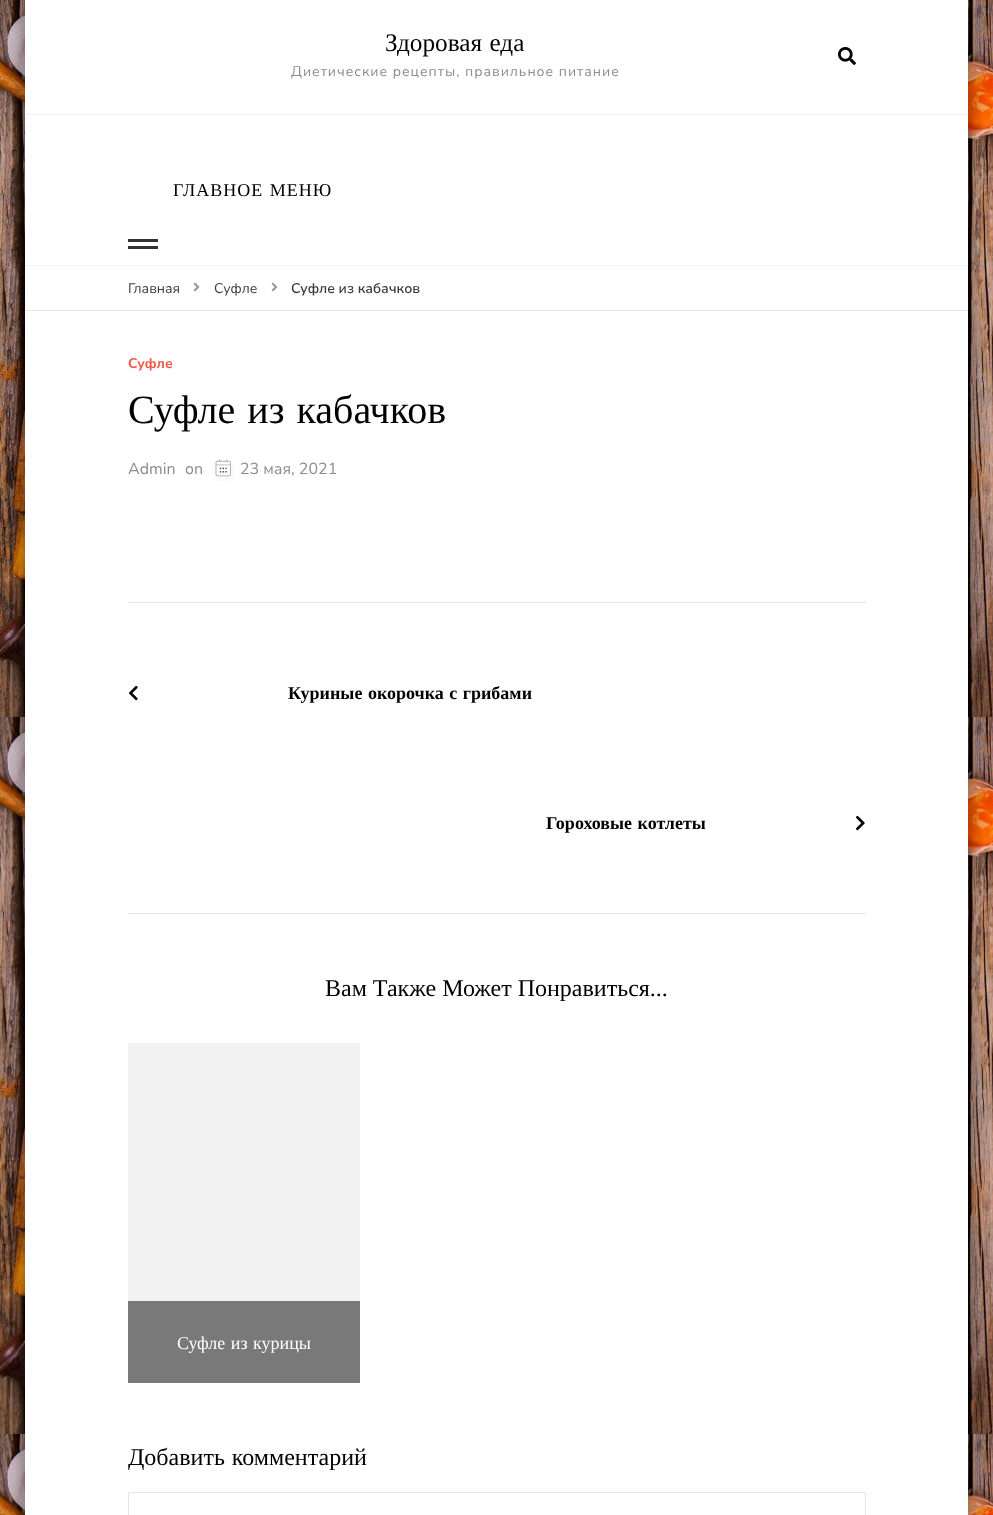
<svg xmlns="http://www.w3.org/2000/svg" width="993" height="1515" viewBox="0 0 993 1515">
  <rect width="100%" height="100%" fill="rgb(255,255,255)"/>
  <image x="0" y="0" width="993" height="1515" href="pic1.png"/>
  <rect x="25" y="0" width="943" height="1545" fill="rgba(0,0,0,0.5)" filter="blur(10px)"/>
  <rect x="25" y="0" width="943" height="1515" fill="rgb(255,255,255)"/>
  <rect x="25" y="265" width="943" height="1" fill="rgb(242,242,242)"/>
  <text x="385" y="51" word-spacing="1" font-family="Liberation Serif" font-size="25.25" fill="rgb(0,0,0)">Здоровая еда</text>
  <text x="291" y="76" font-family="Nunito Sans" font-size="14" letter-spacing="1" fill="rgb(140,140,140)">Диетические рецепты, правильное питание</text>
  <image x="838" y="47" width="18" height="18" href="pic2.png"/>
  <rect x="25" y="114" width="943" height="1" fill="rgb(242,242,242)"/>
  <text x="173" y="196" word-spacing="1" font-family="Liberation Serif" font-size="18" letter-spacing="1" fill="rgb(0,0,0)">ГЛАВНОЕ МЕНЮ</text>
  <rect x="128" y="239" width="30" height="3" fill="rgb(51,51,51)"/>
  <rect x="128" y="246" width="30" height="3" fill="rgb(51,51,51)"/>
  <rect x="25" y="310" width="943" height="1" fill="rgb(230,230,230)"/>
  <text x="128" y="293" font-family="Nunito Sans" font-size="14" fill="rgb(63,59,54)">Главная</text>
  <image x="193" y="282" width="7" height="10" href="pic3.png"/>
  <text x="214" y="293" font-family="Nunito Sans" font-size="14" fill="rgb(63,59,54)">Суфле</text>
  <image x="271" y="282" width="7" height="10" href="pic3.png"/>
  <text x="291" y="293" font-family="Nunito Sans" font-size="14" font-weight="600" fill="rgb(63,59,54)">Суфле из кабачков</text>
  <text x="128" y="368" font-family="Nunito Sans" font-size="14" font-weight="bold" fill="rgb(241,86,65)">Суфле</text>
  <text x="128" y="423" word-spacing="2" font-family="Liberation Serif" font-size="40" fill="rgb(0,0,0)">Суфле из кабачков</text>
  <g font-family="Nunito Sans" font-size="16" fill="rgb(140,140,140)">
    <text x="128" y="474">Admin</text>
    <text x="185" y="474">on</text>
  </g>
  <image x="213" y="459" width="21" height="22" href="pic4.png"/>
  <text x="240" y="474" font-family="Nunito Sans" font-size="16" fill="rgb(140,140,140)">23 мая, 2021</text>
  <rect x="128" y="602" width="738" height="1" fill="rgb(229,229,229)"/>
  <rect x="128" y="913" width="738" height="1" fill="rgb(229,229,229)"/>
  <image x="129" y="685" width="9" height="16" href="pic5.png"/>
  <g font-family="Liberation Serif" font-size="18" font-weight="bold" fill="rgb(0,0,0)">
    <text x="288" y="699" word-spacing="1">Куриные окорочка с грибами</text>
    <text x="546" y="829" word-spacing="1">Гороховые котлеты</text>
  </g>
  <image x="856" y="815" width="9" height="16" href="pic6.png"/>
  <text x="325" y="996" font-family="Liberation Serif" font-size="24" fill="rgb(0,0,0)">Вам Также Может Понравиться...</text>
  <rect x="128" y="1043" width="232" height="258" fill="rgb(242,242,242)"/>
  <rect x="128" y="1301" width="232" height="82" fill="rgb(121,121,121)"/>
  <text x="177" y="1349" word-spacing="1" font-family="Liberation Serif" font-size="18" fill="rgb(255,255,255)">Суфле из курицы</text>
  <text x="128" y="1465" word-spacing="1" font-family="Liberation Serif" font-size="24" fill="rgb(0,0,0)">Добавить комментарий</text>
  <rect x="128.5" y="1492.5" width="737" height="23" fill="none" stroke="rgb(229,229,229)"/>
</svg>
